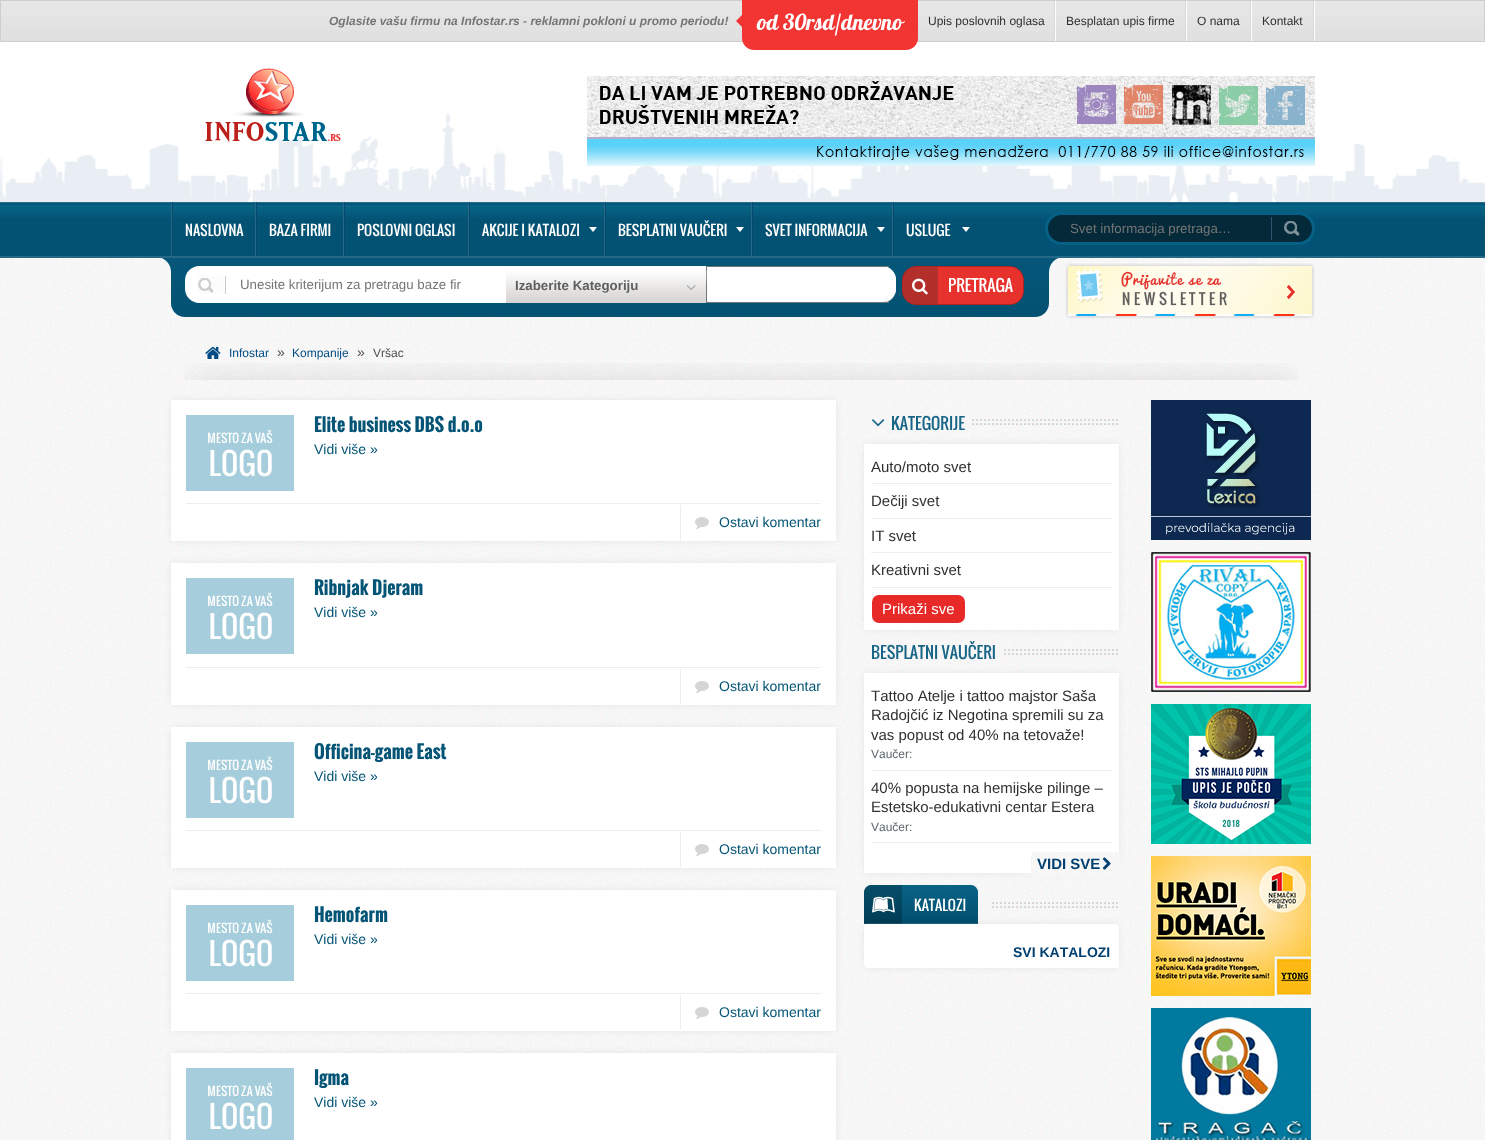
<svg xmlns="http://www.w3.org/2000/svg" width="1485" height="1140" viewBox="0 0 1485 1140">
  <style>*{font-kerning:none!important;font-variant-ligatures:none!important}</style>
  <rect width="100%" height="100%" fill="rgb(255,255,255)"/>
  <image x="0" y="258" width="1485" height="882" href="pic1.png"/>
  <image x="1" y="1" width="1483" height="40" href="pic2.png"/>
  <rect x="0.5" y="0.5" width="1484" height="41" fill="none" stroke="rgb(206,206,206)"/>
  <text x="329" y="25" font-family="Liberation Sans" font-size="12" font-weight="bold" font-style="italic" fill="rgb(117,117,117)">Oglasite vašu firmu na Infostar.rs - reklamni pokloni u promo periodu!</text>
  <path d="M742 0H918V38C918 44.5 912.5 50 906 50H754C747.5 50 742 44.5 742 38Z" fill="rgb(242,52,50)"/>
  <path d="M742 15V27L736 21Z" fill="rgb(242,52,50)"/>
  <text x="757" y="30" font-family="'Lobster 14'" font-size="22" fill="rgb(255,255,255)">od 30rsd/dnevno</text>
  <rect x="1314" y="1" width="1" height="40" fill="rgb(255,255,255)"/>
  <rect x="1054" y="1" width="1" height="40" fill="rgb(219,212,212)"/>
  <text x="928" y="25" font-family="Liberation Sans" font-size="12" fill="rgb(48,48,48)">Upis poslovnih oglasa</text>
  <rect x="1185" y="1" width="1" height="40" fill="rgb(219,212,212)"/>
  <rect x="1055" y="1" width="1" height="40" fill="rgb(255,255,255)"/>
  <text x="1066" y="25" font-family="Liberation Sans" font-size="12" fill="rgb(48,48,48)">Besplatan upis firme</text>
  <rect x="1250" y="1" width="1" height="40" fill="rgb(219,212,212)"/>
  <rect x="1186" y="1" width="1" height="40" fill="rgb(255,255,255)"/>
  <text x="1197" y="25" font-family="Liberation Sans" font-size="12" fill="rgb(48,48,48)">O nama</text>
  <rect x="1313" y="1" width="1" height="40" fill="rgb(219,212,212)"/>
  <rect x="1251" y="1" width="1" height="40" fill="rgb(255,255,255)"/>
  <text x="1262" y="25" font-family="Liberation Sans" font-size="12" fill="rgb(48,48,48)">Kontakt</text>
  <image x="0" y="98" width="1485" height="104" href="pic3.png"/>
  <image x="205" y="68" width="136" height="75" href="pic4.png"/>
  <image x="587" y="76" width="728" height="90" href="pic5.png"/>
  <rect x="0" y="219" width="1485" height="37" fill="rgb(3,82,115)"/>
  <image x="0" y="202" width="1485" height="17" href="pic6.png"/>
  <rect x="0" y="256" width="1485" height="2" fill="rgb(37,105,134)"/>
  <rect x="171" y="202" width="1" height="54" fill="rgb(37,105,134)"/>
  <rect x="172" y="202" width="1" height="54" fill="rgb(5,74,106)"/>
  <text x="185" y="236" font-family="Oswald" font-size="14" fill="rgb(255,255,255)">NASLOVNA</text>
  <rect x="255" y="202" width="1" height="54" fill="rgb(37,105,134)"/>
  <rect x="256" y="202" width="1" height="54" fill="rgb(5,74,106)"/>
  <text x="269" y="236" font-family="Oswald" font-size="14" fill="rgb(255,255,255)">BAZA FIRMI</text>
  <rect x="343" y="202" width="1" height="54" fill="rgb(37,105,134)"/>
  <rect x="344" y="202" width="1" height="54" fill="rgb(5,74,106)"/>
  <text x="357" y="236" font-family="Oswald" font-size="14" fill="rgb(255,255,255)">POSLOVNI OGLASI</text>
  <rect x="468" y="202" width="1" height="54" fill="rgb(37,105,134)"/>
  <rect x="469" y="202" width="1" height="54" fill="rgb(5,74,106)"/>
  <text x="482" y="236" font-family="Oswald" font-size="14" fill="rgb(255,255,255)">AKCIJE I KATALOZI</text>
  <path d="M589 227H597L593 232Z" fill="rgb(255,255,255)"/>
  <rect x="604" y="202" width="1" height="54" fill="rgb(37,105,134)"/>
  <rect x="605" y="202" width="1" height="54" fill="rgb(5,74,106)"/>
  <text x="618" y="236" font-family="Oswald" font-size="14" fill="rgb(255,255,255)">BESPLATNI VAUČERI</text>
  <path d="M736 227H744L740 232Z" fill="rgb(255,255,255)"/>
  <rect x="751" y="202" width="1" height="54" fill="rgb(37,105,134)"/>
  <rect x="752" y="202" width="1" height="54" fill="rgb(5,74,106)"/>
  <text x="765" y="236" font-family="Oswald" font-size="14" fill="rgb(255,255,255)">SVET INFORMACIJA</text>
  <path d="M877 227H885L881 232Z" fill="rgb(255,255,255)"/>
  <rect x="892" y="202" width="1" height="54" fill="rgb(37,105,134)"/>
  <rect x="893" y="202" width="1" height="54" fill="rgb(5,74,106)"/>
  <text x="906" y="236" font-family="Oswald" font-size="14" fill="rgb(255,255,255)">USLUGE</text>
  <path d="M962 227H970L966 232Z" fill="rgb(255,255,255)"/>
  <rect x="1046.5" y="213.5" width="267" height="30" rx="15" fill="rgb(4,41,57)" stroke="rgb(7,97,135)" stroke-width="3"/>
  <text x="1070" y="233" font-family="Liberation Sans" font-size="13.3" fill="rgb(117,117,117)">Svet informacija pretraga…</text>
  <image x="1284" y="221" width="16" height="15" href="pic7.png"/>
  <rect x="1271" y="217" width="1" height="23" fill="rgb(51,84,113)"/>
  <image x="171" y="258" width="878" height="59" href="pic8.png"/>
  <image x="161" y="258" width="10" height="13" href="pic9.png"/>
  <image x="1049" y="258" width="10" height="13" href="pic10.png"/>
  <path d="M199 266H506V303H199C191.5 303 185 296.5 185 289V280C185 272.5 191.5 266 199 266Z" fill="rgb(255,255,255)"/>
  <image x="198" y="276" width="28" height="18" href="pic11.png"/>
  <text x="240" y="289" font-family="Liberation Sans" font-size="13.3" fill="rgb(117,117,117)">Unesite kriterijum za pretragu baze fir</text>
  <image x="506" y="266" width="200" height="37" href="pic12.png"/>
  <text x="515" y="290" font-family="Liberation Sans" font-size="13.3" font-weight="bold" fill="rgb(95,95,95)">Izaberite Kategoriju</text>
  <image x="686" y="285" width="10" height="6" href="pic13.png"/>
  <image x="706" y="266" width="190" height="37" href="pic14.png"/>
  <rect x="707" y="266" width="182" height="1" fill="rgb(118,118,118)"/>
  <rect x="707" y="302" width="182" height="1" fill="rgb(118,118,118)"/>
  <rect x="706" y="267" width="1" height="35" fill="rgb(118,118,118)"/>
  <path d="M708 267C706 267 707 281 707 284H896V280C896 273 890 267 882 267Z" fill="rgb(255,255,255)"/>
  <path d="M707 284V301H887C892 299 896 294 896 289V284Z" fill="rgb(255,255,255)"/>
  <path d="M707 301H887L882 302H708Z" fill="rgb(255,255,255)"/>
  <rect x="902.5" y="266.5" width="121" height="38" rx="13.5" fill="rgb(179,47,43)" stroke="rgb(176,34,31)"/>
  <image x="912" y="278" width="16" height="17" href="pic15.png"/>
  <path d="M938 267H1010C1017 267 1023 273 1023 280V291C1023 298 1017 304 1010 304H938Z" fill="rgb(230,49,45)"/>
  <text x="948" y="292" font-family="Oswald" font-size="16" fill="rgb(255,255,255)">PRETRAGA</text>
  <image x="1065" y="263" width="250" height="56" href="pic16.png"/>
  <image x="184" y="363" width="1115" height="17" href="pic17.png"/>
  <image x="205" y="346" width="16" height="13" href="pic18.png"/>
  <text x="229" y="357" font-family="Liberation Sans" font-size="12" fill="rgb(2,76,133)">Infostar</text>
  <text x="277" y="357" font-family="Liberation Sans" font-size="14" fill="rgb(81,81,81)">»</text>
  <text x="292" y="357" font-family="Liberation Sans" font-size="12" fill="rgb(2,76,133)">Kompanije</text>
  <text x="357" y="357" font-family="Liberation Sans" font-size="14" fill="rgb(81,81,81)">»</text>
  <text x="373" y="357" font-family="Liberation Sans" font-size="12" fill="rgb(81,81,81)">Vršac</text>
  <rect x="173" y="402" width="661" height="137" fill="rgba(0,0,0,0.1)" filter="blur(5px)"/>
  <rect x="171" y="400" width="665" height="141" fill="rgb(255,255,255)"/>
  <image x="186" y="415" width="108" height="76" href="pic19.png"/>
  <text x="314" y="432" font-family="Oswald" font-size="18" font-weight="bold" fill="rgb(4,84,118)">Elite business DBS d.o.o</text>
  <text x="314" y="454" font-family="Liberation Sans" font-size="14" fill="rgb(4,84,118)">Vidi više »</text>
  <rect x="186" y="503" width="635" height="1" fill="rgb(237,237,237)"/>
  <rect x="680" y="505" width="1" height="35" fill="rgb(237,237,237)"/>
  <image x="695" y="517" width="14" height="12" href="pic20.png"/>
  <text x="719" y="527" font-family="Liberation Sans" font-size="14" fill="rgb(4,84,118)">Ostavi komentar</text>
  <rect x="173" y="565" width="661" height="138" fill="rgba(0,0,0,0.1)" filter="blur(5px)"/>
  <rect x="171" y="563" width="665" height="142" fill="rgb(255,255,255)"/>
  <image x="186" y="578" width="108" height="76" href="pic19.png"/>
  <text x="314" y="595" font-family="Oswald" font-size="18" font-weight="bold" fill="rgb(4,84,118)">Ribnjak Djeram</text>
  <text x="314" y="617" font-family="Liberation Sans" font-size="14" fill="rgb(4,84,118)">Vidi više »</text>
  <rect x="186" y="667" width="635" height="1" fill="rgb(237,237,237)"/>
  <rect x="680" y="669" width="1" height="35" fill="rgb(237,237,237)"/>
  <image x="695" y="681" width="14" height="12" href="pic20.png"/>
  <text x="719" y="691" font-family="Liberation Sans" font-size="14" fill="rgb(4,84,118)">Ostavi komentar</text>
  <rect x="173" y="729" width="661" height="137" fill="rgba(0,0,0,0.1)" filter="blur(5px)"/>
  <rect x="171" y="727" width="665" height="141" fill="rgb(255,255,255)"/>
  <image x="186" y="742" width="108" height="76" href="pic19.png"/>
  <text x="314" y="759" font-family="Oswald" font-size="18" font-weight="bold" fill="rgb(4,84,118)">Officina-game East</text>
  <text x="314" y="781" font-family="Liberation Sans" font-size="14" fill="rgb(4,84,118)">Vidi više »</text>
  <rect x="186" y="830" width="635" height="1" fill="rgb(237,237,237)"/>
  <rect x="680" y="832" width="1" height="35" fill="rgb(237,237,237)"/>
  <image x="695" y="844" width="14" height="12" href="pic20.png"/>
  <text x="719" y="854" font-family="Liberation Sans" font-size="14" fill="rgb(4,84,118)">Ostavi komentar</text>
  <rect x="173" y="892" width="661" height="137" fill="rgba(0,0,0,0.1)" filter="blur(5px)"/>
  <rect x="171" y="890" width="665" height="141" fill="rgb(255,255,255)"/>
  <image x="186" y="905" width="108" height="76" href="pic19.png"/>
  <text x="314" y="922" font-family="Oswald" font-size="18" font-weight="bold" fill="rgb(4,84,118)">Hemofarm</text>
  <text x="314" y="944" font-family="Liberation Sans" font-size="14" fill="rgb(4,84,118)">Vidi više »</text>
  <rect x="186" y="993" width="635" height="1" fill="rgb(237,237,237)"/>
  <rect x="680" y="995" width="1" height="35" fill="rgb(237,237,237)"/>
  <image x="695" y="1007" width="14" height="12" href="pic20.png"/>
  <text x="719" y="1017" font-family="Liberation Sans" font-size="14" fill="rgb(4,84,118)">Ostavi komentar</text>
  <rect x="173" y="1055" width="661" height="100" fill="rgba(0,0,0,0.1)" filter="blur(5px)"/>
  <rect x="171" y="1053" width="665" height="87" fill="rgb(255,255,255)"/>
  <image x="186" y="1068" width="108" height="72" href="pic21.png"/>
  <text x="314" y="1085" font-family="Oswald" font-size="18" font-weight="bold" fill="rgb(4,84,118)">Igma</text>
  <text x="314" y="1107" font-family="Liberation Sans" font-size="14" fill="rgb(4,84,118)">Vidi više »</text>
  <image x="972" y="419" width="146" height="6" href="pic22.png"/>
  <image x="864" y="411" width="108" height="23" href="pic23.png"/>
  <image x="872" y="419" width="13" height="8" href="pic24.png"/>
  <text x="891" y="430" font-family="Oswald" font-size="16" fill="rgb(24,102,135)">KATEGORIJE</text>
  <image x="864" y="642" width="139" height="21" href="pic26.png"/>
  <rect x="866" y="446" width="251" height="182" fill="rgba(0,0,0,0.1)" filter="blur(5px)"/>
  <rect x="864" y="444" width="255" height="186" fill="rgb(255,255,255)"/>
  <rect x="871" y="483" width="241" height="1" fill="rgb(237,237,237)"/>
  <text x="871" y="472" font-family="Liberation Sans" font-size="15" fill="rgb(48,48,48)">Auto/moto svet</text>
  <rect x="871" y="518" width="241" height="1" fill="rgb(237,237,237)"/>
  <text x="871" y="506" font-family="Liberation Sans" font-size="15" fill="rgb(48,48,48)">Dečiji svet</text>
  <rect x="871" y="552" width="241" height="1" fill="rgb(237,237,237)"/>
  <text x="871" y="541" font-family="Liberation Sans" font-size="15" fill="rgb(48,48,48)">IT svet</text>
  <rect x="871" y="587" width="241" height="1" fill="rgb(237,237,237)"/>
  <text x="871" y="575" font-family="Liberation Sans" font-size="15" fill="rgb(48,48,48)">Kreativni svet</text>
  <rect x="872" y="595" width="93" height="28" rx="7" fill="rgb(231,42,40)"/>
  <text x="882" y="614" font-family="Liberation Sans" font-size="15" fill="rgb(255,255,255)">Prikaži sve</text>
  <image x="1004" y="649" width="114" height="6" href="pic25.png"/>
  <text x="871" y="659" font-family="Oswald" font-size="16" fill="rgb(24,102,135)">BESPLATNI VAUČERI</text>
  <rect x="866" y="675" width="251" height="196" fill="rgba(0,0,0,0.1)" filter="blur(5px)"/>
  <rect x="864" y="673" width="255" height="200" fill="rgb(255,255,255)"/>
  <rect x="871" y="770" width="241" height="1" fill="rgb(237,237,237)"/>
  <g font-family="Liberation Sans" font-size="15" fill="rgb(48,48,48)">
    <text>
      <tspan x="871" y="701">Tattoo Atelje i tattoo majstor Saša</tspan>
      <tspan x="871" y="720">Radojčić iz Negotina spremili su za</tspan>
      <tspan x="871" y="740">vas popust od 40% na tetovaže!</tspan>
    </text>
  </g>
  <text x="871" y="758" font-family="Liberation Sans" font-size="12" fill="rgb(92,104,107)">Vaučer:</text>
  <rect x="871" y="842" width="241" height="1" fill="rgb(237,237,237)"/>
  <g font-family="Liberation Sans" font-size="15" fill="rgb(48,48,48)">
    <text>
      <tspan x="871" y="793">40% popusta na hemijske pilinge –</tspan>
      <tspan x="871" y="812">Estetsko-edukativni centar Estera</tspan>
    </text>
  </g>
  <text x="871" y="831" font-family="Liberation Sans" font-size="12" fill="rgb(92,104,107)">Vaučer:</text>
  <image x="1031" y="852" width="90" height="25" href="pic27.png"/>
  <text x="1037" y="869" font-family="Liberation Sans" font-size="15" font-weight="bold" fill="rgb(0,64,112)">VIDI SVE</text>
  <image x="1102" y="857" width="9" height="13" href="pic28.png"/>
  <image x="992" y="902" width="126" height="6" href="pic29.png"/>
  <path d="M872 885H970C974.5 885 978 888.5 978 893V924H864V893C864 888.5 867.5 885 872 885Z" fill="rgb(37,105,134)"/>
  <image x="864" y="885" width="114" height="38" href="pic30.png"/>
  <path d="M872 885H902V924H864V893C864 888.5 867.5 885 872 885Z" fill="rgba(0,0,0,0.22)"/>
  <image x="872" y="896" width="23" height="17" href="pic31.png"/>
  <text x="914" y="911" font-family="Oswald" font-size="14" fill="rgb(255,255,255)">KATALOZI</text>
  <image x="978" y="885" width="12" height="39" href="pic32.png"/>
  <rect x="866" y="926" width="251" height="40" rx="2" fill="rgba(0,0,0,0.1)" filter="blur(5px)"/>
  <rect x="864" y="924" width="255" height="44" rx="4" fill="rgb(255,255,255)"/>
  <text x="1013" y="957" font-family="Liberation Sans" font-size="14" font-weight="bold" fill="rgb(0,64,112)">SVI KATALOZI</text>
  <image x="1151" y="400" width="160" height="140" href="pic33.png"/>
  <image x="1151" y="552" width="160" height="140" href="pic34.png"/>
  <image x="1151" y="704" width="160" height="140" href="pic35.png"/>
  <image x="1151" y="856" width="160" height="140" href="pic36.png"/>
  <image x="1151" y="1008" width="160" height="132" href="pic37.png"/>
</svg>
